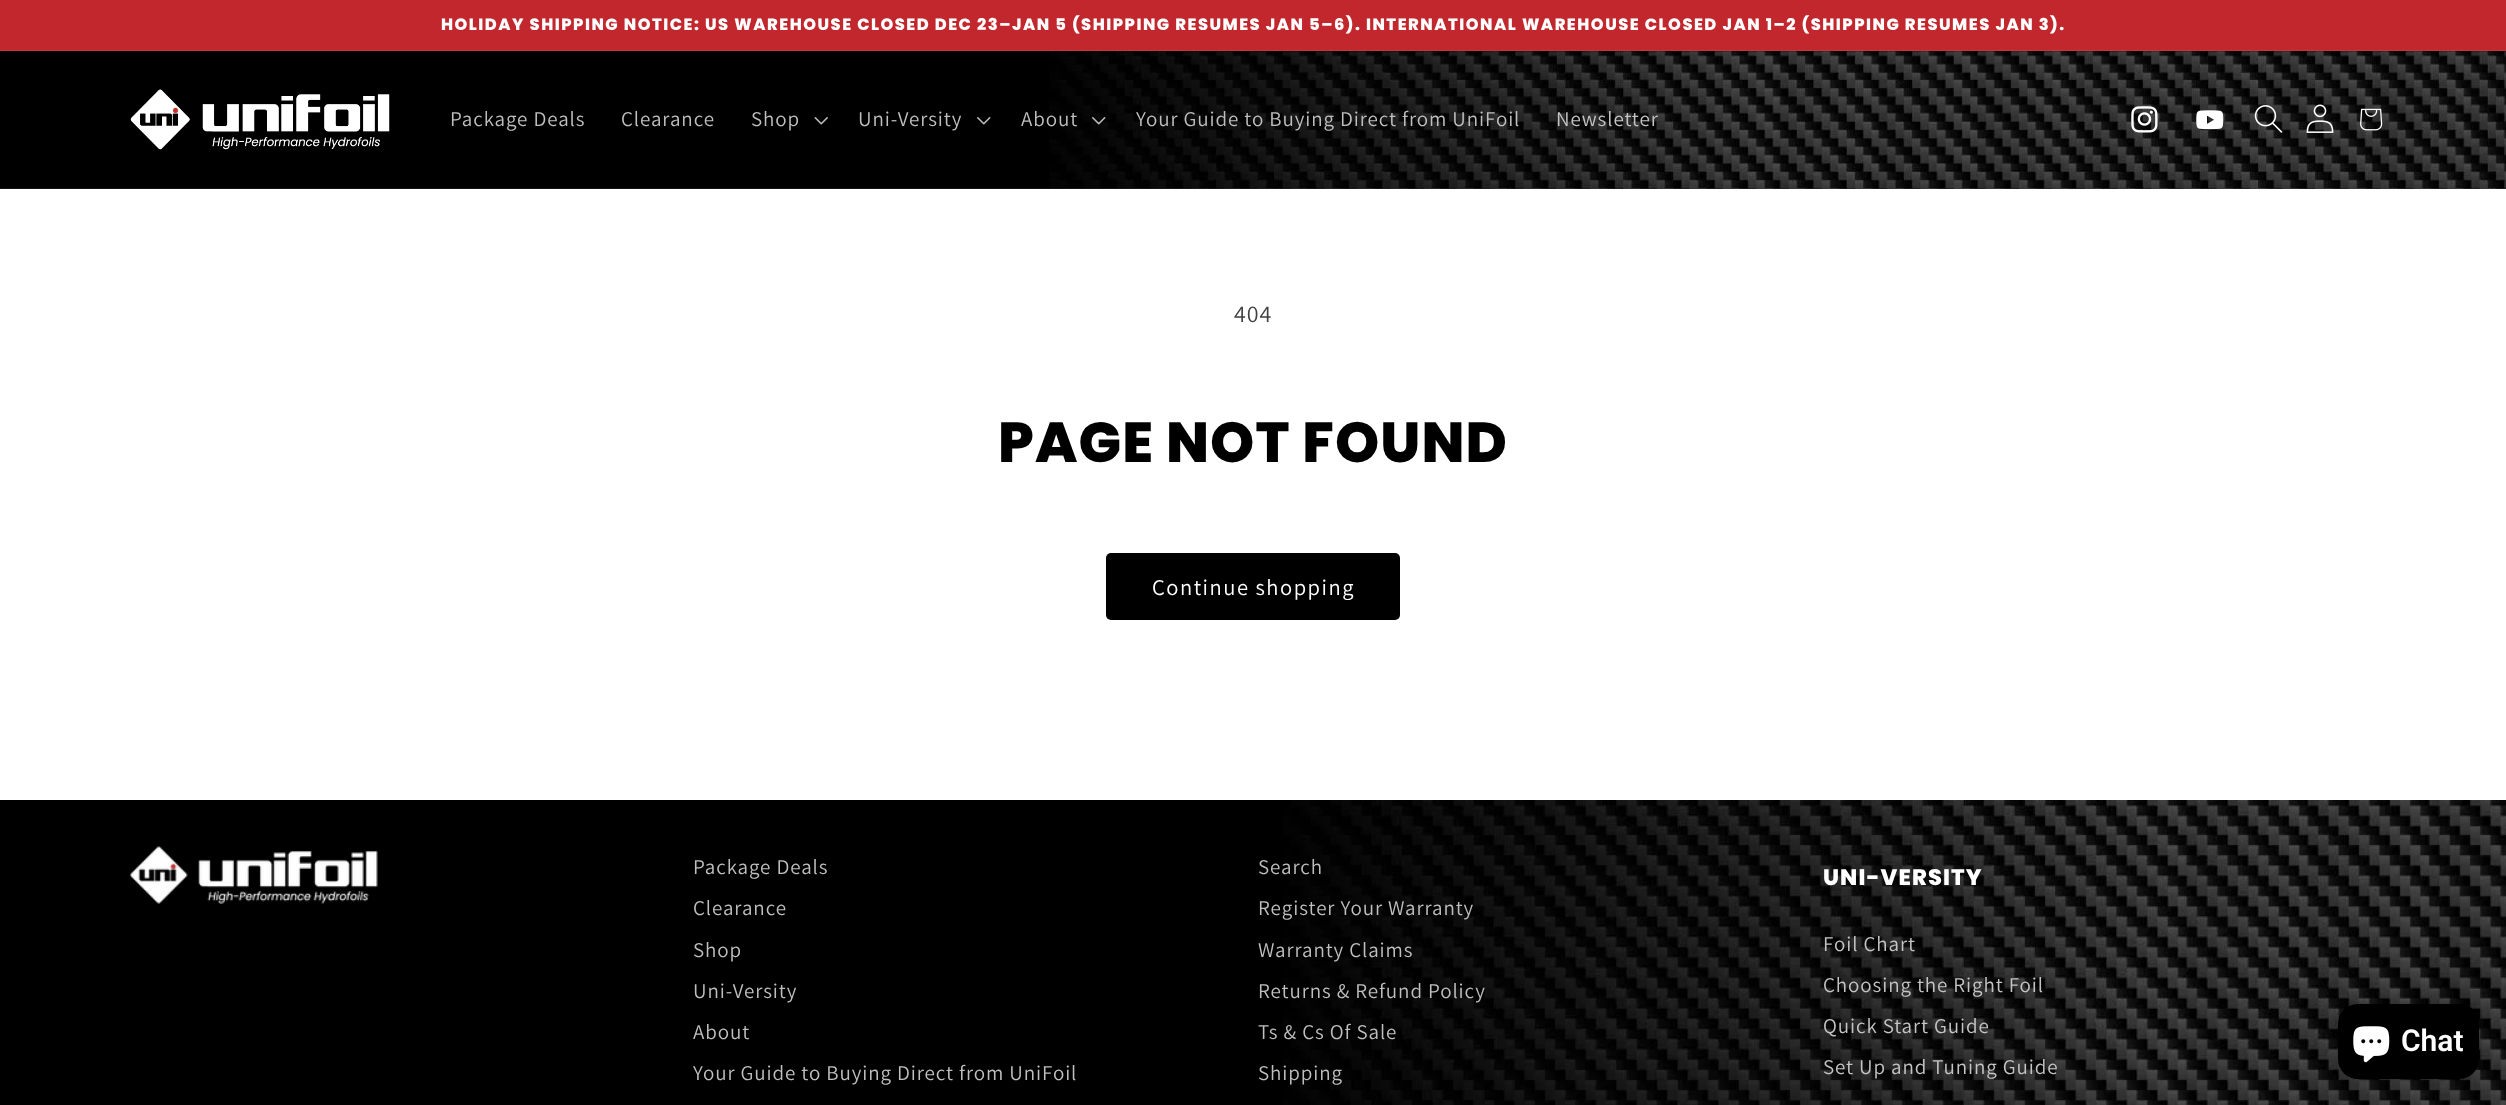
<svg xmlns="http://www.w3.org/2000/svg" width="2506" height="1105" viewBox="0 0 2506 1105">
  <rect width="100%" height="100%" fill="rgb(255,255,255)"/>
  <rect x="0" y="0" width="2506" height="50" fill="rgb(193,39,45)"/>
  <rect x="0" y="50" width="2506" height="1" fill="rgb(198,56,62)"/>
  <text x="441" y="30" font-family="Poppins" font-size="16.25" font-weight="800" letter-spacing="1.5" fill="rgb(255,255,255)">HOLIDAY SHIPPING NOTICE: US WAREHOUSE CLOSED DEC 23–JAN 5 (SHIPPING RESUMES JAN 5–6). INTERNATIONAL WAREHOUSE CLOSED JAN 1–2 (SHIPPING RESUMES JAN 3).</text>
  <rect x="0" y="51" width="2506" height="138" fill="rgb(0,0,0)"/>
  <image x="1049" y="51" width="1457" height="138" href="pic1.png"/>
  <rect x="0" y="188" width="2506" height="1" fill="rgba(255,255,255,0.08)"/>
  <image x="130" y="89" width="260" height="61" href="pic2.png"/>
  <g font-family="Assistant" font-size="21" letter-spacing="0.9" fill="rgb(191,191,191)">
    <text x="450" y="126">Package Deals</text>
    <text x="621" y="126">Clearance</text>
    <text x="751" y="126">Shop</text>
  </g>
  <image x="814" y="117" width="14" height="8" href="pic3.png"/>
  <text x="858" y="126" font-family="Assistant" font-size="21" letter-spacing="0.9" fill="rgb(191,191,191)">Uni-Versity</text>
  <image x="977" y="117" width="14" height="8" href="pic4.png"/>
  <text x="1021" y="126" font-family="Assistant" font-size="21" letter-spacing="0.9" fill="rgb(191,191,191)">About</text>
  <image x="1092" y="117" width="14" height="8" href="pic5.png"/>
  <text x="1136" y="126" font-family="Assistant" font-size="21" letter-spacing="0.9" fill="rgb(191,191,191)">Your Guide to Buying Direct from UniFoil</text>
  <text x="1556" y="126" font-family="Assistant" font-size="21" letter-spacing="0.9" fill="rgb(197,197,197)">Newsletter</text>
  <image x="2131" y="106" width="27" height="27" href="pic6.png"/>
  <image x="2196" y="110" width="28" height="20" href="pic7.png"/>
  <image x="2254" y="105" width="29" height="28" href="pic8.png"/>
  <image x="2306" y="104" width="28" height="29" href="pic9.png"/>
  <image x="2360" y="108" width="23" height="23" href="pic10.png"/>
  <text x="1234" y="322" font-family="Assistant" font-size="24" letter-spacing="0.9" fill="rgb(64,64,64)">404</text>
  <text x="998" y="462" font-family="Poppins" font-size="56.25" font-weight="800" letter-spacing="1.1" fill="rgb(0,0,0)">PAGE NOT FOUND</text>
  <rect x="1106" y="553" width="294" height="67" rx="5" fill="rgb(0,0,0)"/>
  <text x="1152" y="595" font-family="Assistant" font-size="22.5" letter-spacing="1.5" fill="rgb(255,255,255)">Continue shopping</text>
  <rect x="0" y="800" width="1283" height="305" fill="rgb(0,0,0)"/>
  <image x="1283" y="800" width="1223" height="305" href="pic11.png"/>
  <image x="129" y="846" width="249" height="58" href="pic12.png"/>
  <g font-family="Assistant" font-size="21" letter-spacing="0.9" fill="rgb(191,191,191)">
    <text>
      <tspan x="693" y="874">Package Deals</tspan>
      <tspan x="693" y="915">Clearance</tspan>
    </text>
    <text>
      <tspan x="693" y="957">Shop</tspan>
      <tspan x="693" y="998">Uni-Versity</tspan>
      <tspan x="693" y="1039">About</tspan>
      <tspan x="693" y="1080">Your Guide to Buying Direct from UniFoil</tspan>
    </text>
    <text>
      <tspan x="1258" y="874">Search</tspan>
      <tspan x="1258" y="915">Register Your Warranty</tspan>
    </text>
    <text>
      <tspan x="1258" y="957">Warranty Claims</tspan>
      <tspan x="1258" y="998">Returns &amp; Refund Policy</tspan>
      <tspan x="1258" y="1039">Ts &amp; Cs Of Sale</tspan>
      <tspan x="1258" y="1080">Shipping</tspan>
    </text>
  </g>
  <text x="1823" y="885" font-family="Poppins" font-size="22.5" font-weight="800" letter-spacing="1.1" fill="rgb(255,255,255)">UNI-VERSITY</text>
  <g font-family="Assistant" font-size="21" letter-spacing="0.9" fill="rgb(197,197,197)">
    <text>
      <tspan x="1823" y="951">Foil Chart</tspan>
      <tspan x="1823" y="992">Choosing the Right Foil</tspan>
      <tspan x="1823" y="1033">Quick Start Guide</tspan>
      <tspan x="1823" y="1074">Set Up and Tuning Guide</tspan>
    </text>
  </g>
  <rect x="2338" y="1004" width="141" height="75" rx="20" fill="rgba(0,0,0,0.15)" filter="blur(3px)"/>
  <rect x="2338" y="1004" width="141" height="75" rx="20" fill="rgb(0,0,0)"/>
  <image x="2353" y="1026" width="37" height="37" href="pic13.png"/>
  <text x="2401" y="1051" font-family="Roboto" font-size="30" font-weight="600" fill="rgb(255,255,255)">Chat</text>
</svg>
